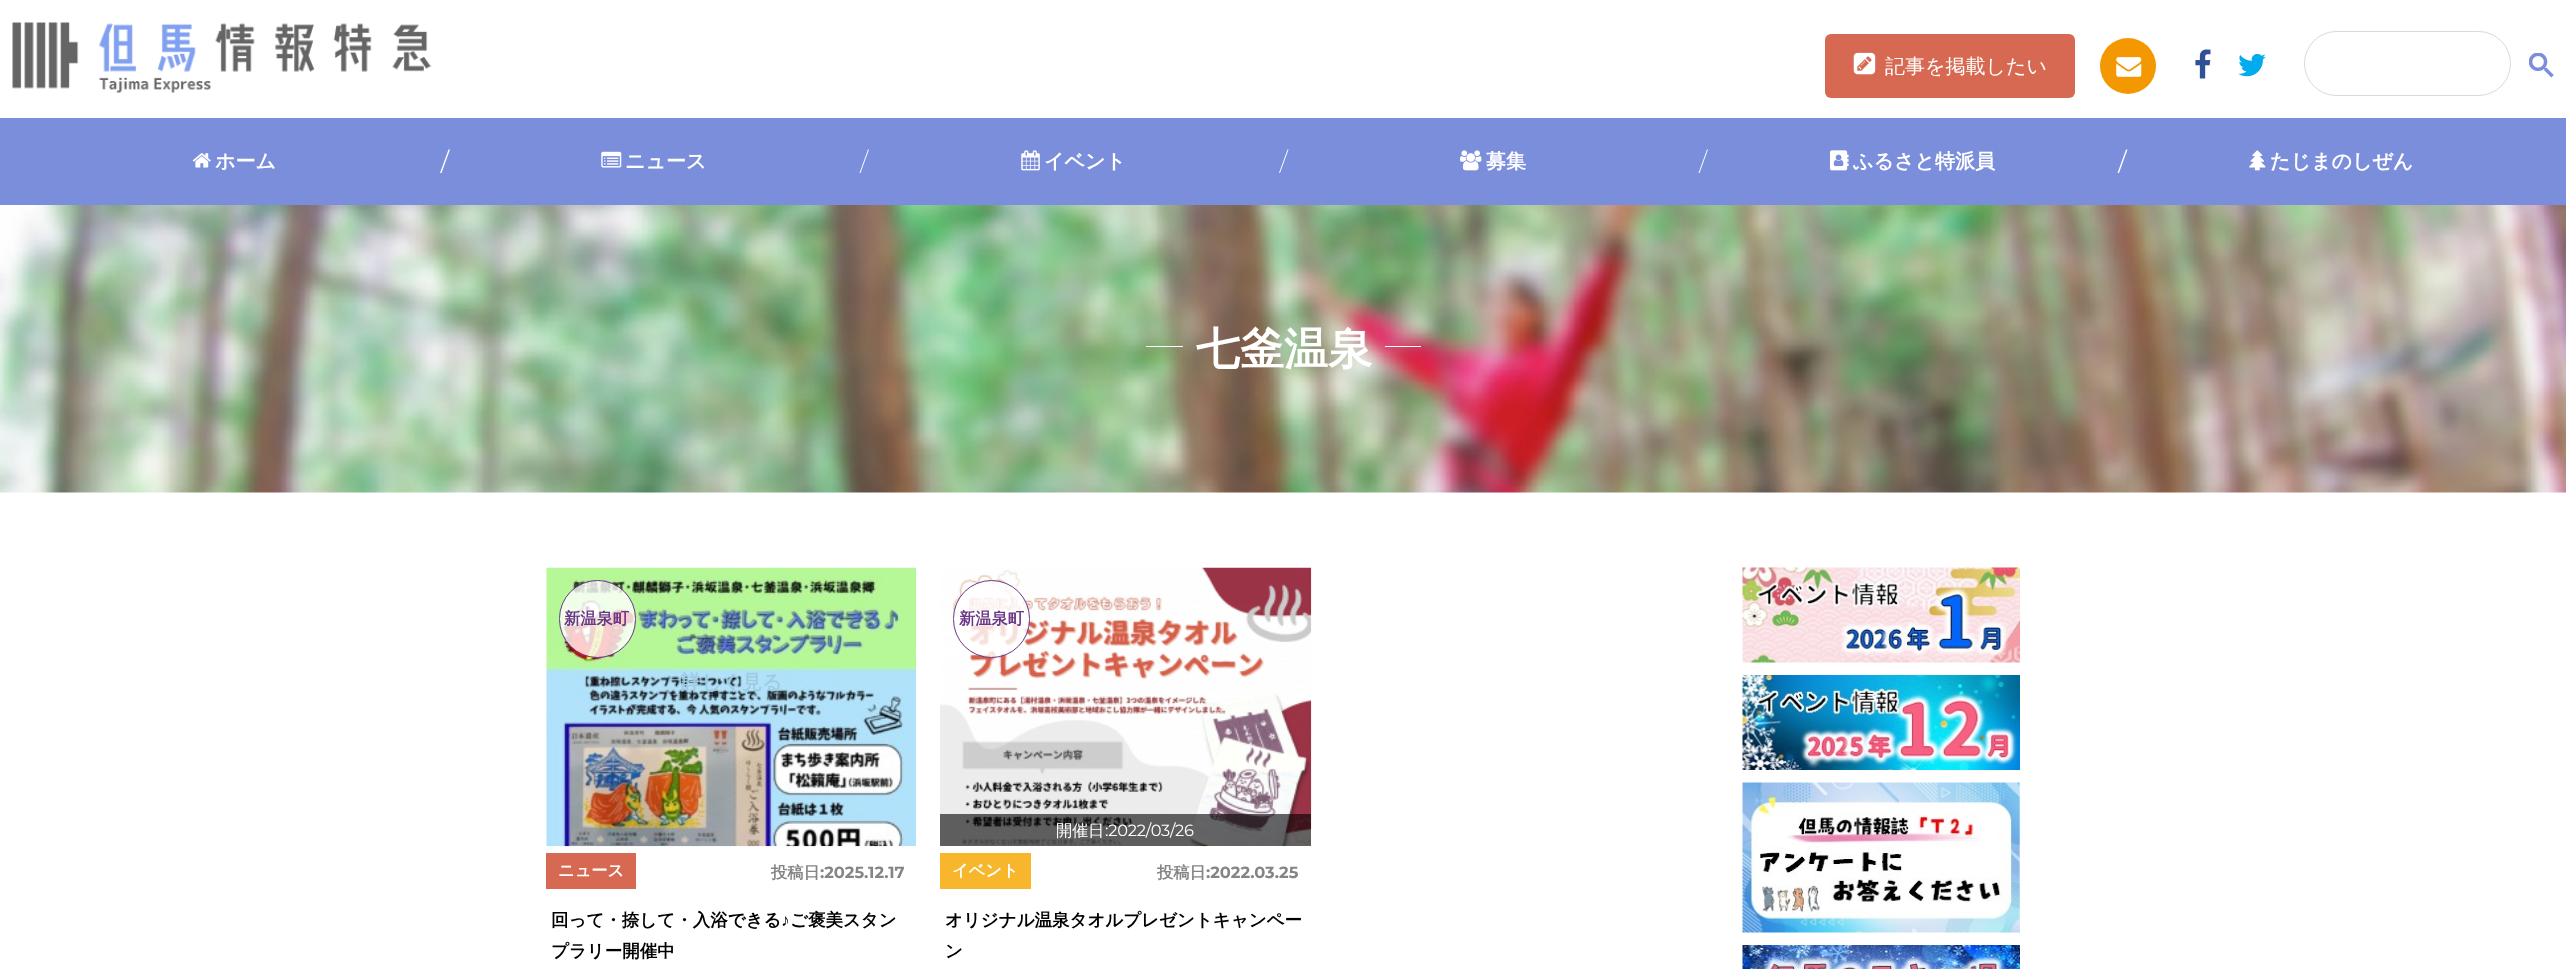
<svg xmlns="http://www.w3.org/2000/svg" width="2566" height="969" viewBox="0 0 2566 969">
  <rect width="100%" height="100%" fill="rgb(255,255,255)"/>
  <image x="12" y="22" width="420" height="71" href="pic1.png"/>
  <rect x="1825" y="34" width="250" height="64" rx="6" fill="rgb(215,104,81)"/>
  <image x="1853" y="52" width="23" height="23" href="pic2.png"/>
  <text x="1885" y="73" font-family="WenQuanYi Zen Hei" font-size="20" font-weight="500" fill="rgb(255,255,255)">記事を掲載したい</text>
  <circle cx="2128" cy="66" r="28" fill="rgb(243,152,0)"/>
  <image x="2116" y="57" width="26" height="20" href="pic3.png"/>
  <image x="2195" y="49" width="16" height="30" href="pic4.png"/>
  <image x="2238" y="53" width="28" height="24" href="pic5.png"/>
  <rect x="2304.5" y="31.5" width="206" height="64" rx="32" fill="none" stroke="rgb(217,217,217)"/>
  <image x="2529" y="53" width="25" height="25" href="pic6.png"/>
  <rect x="0" y="118" width="2566" height="87" fill="rgb(123,142,219)"/>
  <image x="192" y="153" width="19" height="15" href="pic7.png"/>
  <text x="215" y="168" font-family="WenQuanYi Zen Hei" font-size="20" font-weight="bold" fill="rgb(255,255,255)">ホーム</text>
  <path d="M448.5 149.5H450L441.5 173H440Z" fill="rgb(255,255,255)"/>
  <image x="601" y="151" width="21" height="17" href="pic8.png"/>
  <text x="625" y="168" font-family="WenQuanYi Zen Hei" font-size="20" font-weight="bold" fill="rgb(255,255,255)">ニュース</text>
  <path d="M868 149.5H869L860.5 173H859.5Z" fill="rgb(255,255,255)"/>
  <image x="1021" y="150" width="19" height="21" href="pic9.png"/>
  <text x="1044" y="168" font-family="WenQuanYi Zen Hei" font-size="20" font-weight="bold" fill="rgb(255,255,255)">イベント</text>
  <path d="M1287.5 149.5H1288.5L1280 173H1279Z" fill="rgb(255,255,255)"/>
  <image x="1460" y="150" width="22" height="21" href="pic10.png"/>
  <text x="1486" y="168" font-family="WenQuanYi Zen Hei" font-size="20" font-weight="bold" fill="rgb(255,255,255)">募集</text>
  <path d="M1707 149.5H1708L1699.5 173H1698.5Z" fill="rgb(255,255,255)"/>
  <image x="1830" y="150" width="19" height="21" href="pic11.png"/>
  <text x="1853" y="168" font-family="WenQuanYi Zen Hei" font-size="20" font-weight="bold" fill="rgb(255,255,255)">ふるさと特派員</text>
  <path d="M2126 149.5H2127.5L2119 173H2117.5Z" fill="rgb(255,255,255)"/>
  <image x="2249" y="150" width="17" height="21" href="pic12.png"/>
  <text x="2270" y="168" font-family="WenQuanYi Zen Hei" font-size="20" font-weight="bold" fill="rgb(255,255,255)">たじまのしぜん</text>
  <image x="0" y="205" width="2566" height="288" href="pic13.png"/>
  <rect x="1146" y="346" width="37" height="1" fill="rgb(255,255,255)"/>
  <text x="1196" y="364" font-family="WenQuanYi Zen Hei" font-size="44" font-weight="bold" fill="rgb(255,255,255)">七釜温泉</text>
  <rect x="1385" y="346" width="36" height="1" fill="rgb(255,255,255)"/>
  <image x="546" y="567" width="371" height="280" href="pic14.png"/>
  <rect x="559.5" y="580.5" width="76" height="77" rx="38" fill="rgba(255,255,255,0.8)" stroke="rgb(106,55,134)"/>
  <text x="564" y="624" font-family="WenQuanYi Zen Hei" font-size="16.25" font-weight="bold" fill="rgb(106,55,134)">新温泉町</text>
  <text x="681" y="689" font-family="WenQuanYi Zen Hei" font-size="20" font-weight="bold" fill="rgb(160,204,226)">詳しく見る</text>
  <rect x="546" y="853" width="90" height="36" fill="rgb(215,104,81)"/>
  <text x="558" y="876" font-family="WenQuanYi Zen Hei" font-size="16.25" font-weight="bold" fill="rgb(255,255,255)">ニュース</text>
  <text x="771" y="878" font-family="WenQuanYi Zen Hei" font-size="16.25" font-weight="bold" fill="rgb(133,133,133)">投稿日</text>
  <text x="820" y="878" font-family="Montserrat" font-size="16.25" font-weight="bold" fill="rgb(133,133,133)">:2025.12.17</text>
  <text x="551" y="926" font-family="WenQuanYi Zen Hei" font-size="17.5" font-weight="bold" fill="rgb(0,0,0)">回って・捺して・入浴できる</text>
  <text x="781" y="926" font-family="Liberation Sans" font-size="17.5" font-weight="bold" fill="rgb(0,0,0)">♪</text>
  <g font-family="WenQuanYi Zen Hei" font-size="17.5" font-weight="bold" fill="rgb(0,0,0)">
    <text x="790" y="926">ご褒美スタン</text>
    <text x="551" y="957">プラリー開催中</text>
  </g>
  <image x="940" y="567" width="372" height="280" href="pic15.png"/>
  <rect x="953.5" y="580.5" width="76" height="77" rx="38" fill="rgba(255,255,255,0.8)" stroke="rgb(106,55,134)"/>
  <text x="959" y="624" font-family="WenQuanYi Zen Hei" font-size="16.25" font-weight="bold" fill="rgb(106,55,134)">新温泉町</text>
  <rect x="940" y="814" width="371" height="32" fill="rgba(0,0,0,0.6)"/>
  <text x="1056" y="836" font-family="WenQuanYi Zen Hei" font-size="16.25" font-weight="500" letter-spacing="-0.25" fill="rgb(255,255,255)">開催日</text>
  <text x="1105" y="836" font-family="Montserrat" font-size="16.25" letter-spacing="-0.25" fill="rgb(255,255,255)">:2022/03/26</text>
  <rect x="940" y="853" width="91" height="36" fill="rgb(248,182,45)"/>
  <text x="952" y="876" font-family="WenQuanYi Zen Hei" font-size="16.25" font-weight="bold" fill="rgb(255,255,255)">イベント</text>
  <text x="1157" y="878" font-family="WenQuanYi Zen Hei" font-size="16.25" font-weight="bold" fill="rgb(133,133,133)">投稿日</text>
  <text x="1206" y="878" font-family="Montserrat" font-size="16.25" font-weight="bold" fill="rgb(133,133,133)">:2022.03.25</text>
  <g font-family="WenQuanYi Zen Hei" font-size="17.5" font-weight="bold" fill="rgb(0,0,0)">
    <text>
      <tspan x="945" y="926">オリジナル温泉タオルプレゼントキャンペー</tspan>
      <tspan x="945" y="957">ン</tspan>
    </text>
  </g>
  <image x="1742" y="567" width="278" height="96" href="pic16.png"/>
  <image x="1742" y="675" width="278" height="95" href="pic17.png"/>
  <image x="1742" y="782" width="278" height="151" href="pic18.png"/>
  <image x="1742" y="945" width="278" height="24" href="pic19.png"/>
</svg>
